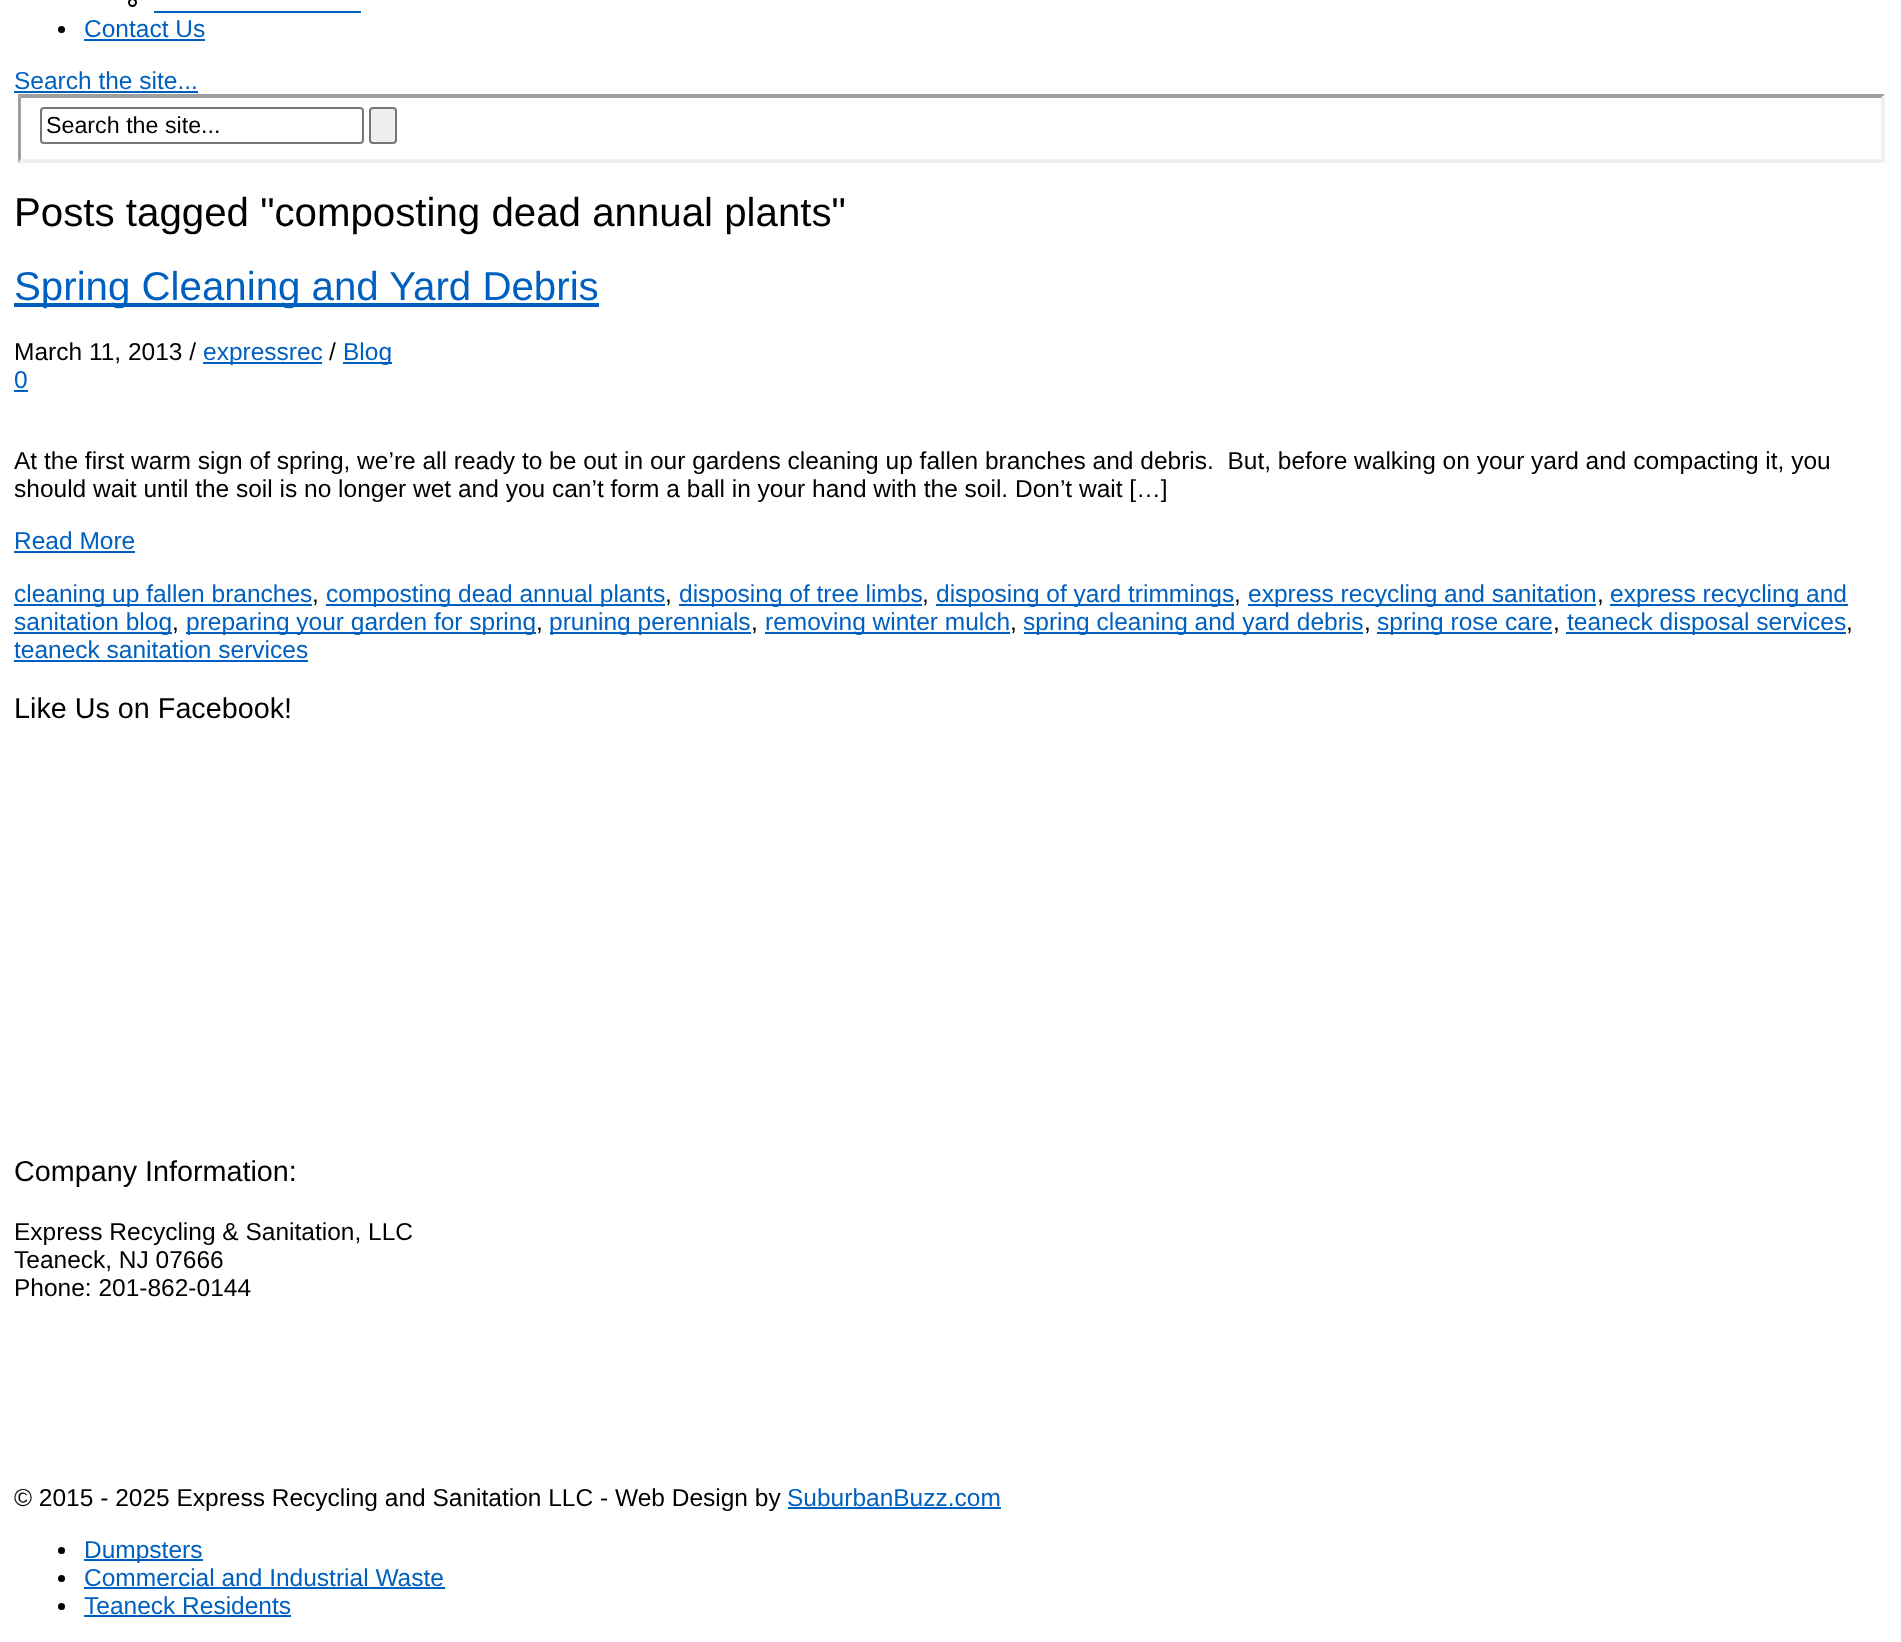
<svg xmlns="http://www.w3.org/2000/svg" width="1901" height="1642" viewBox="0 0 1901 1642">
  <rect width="100%" height="100%" fill="rgb(255,255,255)"/>
  <circle cx="132.5" cy="2.5" r="3.5" fill="none" stroke="rgb(0,0,0)" stroke-width="2"/>
  <rect x="154" y="11" width="207" height="2" fill="rgb(0,96,191)"/>
  <circle cx="61.5" cy="29.5" r="3.5" fill="rgb(0,0,0)"/>
  <text x="84" y="37" font-family="Liberation Sans" font-size="24.5" fill="rgb(0,96,191)">Contact Us</text>
  <rect x="84" y="39" width="121" height="2" fill="rgb(0,96,191)"/>
  <text x="14" y="89" font-family="Liberation Sans" font-size="24.5" fill="rgb(0,96,191)">Search the site...</text>
  <rect x="14" y="91" width="184" height="2" fill="rgb(0,96,191)"/>
  <path d="M18 94H1885L1881 98H21Z" fill="rgb(159,159,159)"/>
  <path d="M1885 94V163L1881 159V98Z" fill="rgb(239,239,239)"/>
  <path d="M1885 163H18L21 159H1881Z" fill="rgb(239,239,239)"/>
  <path d="M18 163V94L21 98V159Z" fill="rgb(159,159,159)"/>
  <rect x="41" y="108" width="322" height="35" rx="3" fill="none" stroke="rgb(118,118,118)" stroke-width="2"/>
  <text x="46" y="133" font-family="Liberation Sans" font-size="23.25" fill="rgb(0,0,0)">Search the site...</text>
  <rect x="370" y="108" width="26" height="35" rx="3" fill="rgb(239,239,239)" stroke="rgb(118,118,118)" stroke-width="2"/>
  <text x="14" y="226" font-family="Liberation Sans" font-size="40.25" fill="rgb(0,0,0)">Posts tagged "composting dead annual plants"</text>
  <rect x="14" y="303" width="585" height="4" fill="rgb(0,96,191)"/>
  <text x="14" y="300" font-family="Liberation Sans" font-size="40.25" fill="rgb(0,96,191)">Spring Cleaning and Yard Debris</text>
  <text x="14" y="360" font-family="Liberation Sans" font-size="24.5" fill="rgb(0,0,0)">March 11, 2013 /</text>
  <rect x="203" y="362" width="119" height="2" fill="rgb(0,96,191)"/>
  <text x="203" y="360" font-family="Liberation Sans" font-size="24.5" fill="rgb(0,96,191)">expressrec</text>
  <text x="329" y="360" font-family="Liberation Sans" font-size="24.5" fill="rgb(0,0,0)">/</text>
  <rect x="343" y="362" width="49" height="2" fill="rgb(0,96,191)"/>
  <g font-family="Liberation Sans" font-size="24.5" fill="rgb(0,96,191)">
    <text x="343" y="360">Blog</text>
    <text x="14" y="388">0</text>
  </g>
  <rect x="14" y="390" width="14" height="2" fill="rgb(0,96,191)"/>
  <g font-family="Liberation Sans" font-size="24.5" fill="rgb(0,0,0)">
    <text xml:space="preserve"><tspan x="14" y="469">At the first warm sign of spring, we’re all ready to be out in our gardens cleaning up fallen branches and debris.  But, before walking on your yard and compacting it, you</tspan><tspan x="14" y="497">should wait until the soil is no longer wet and you can’t form a ball in your hand with the soil. Don’t wait […]</tspan></text>
  </g>
  <text x="14" y="549" font-family="Liberation Sans" font-size="24.5" fill="rgb(0,96,191)">Read More</text>
  <rect x="14" y="551" width="121" height="2" fill="rgb(0,96,191)"/>
  <rect x="14" y="604" width="298" height="2" fill="rgb(0,96,191)"/>
  <text x="14" y="602" font-family="Liberation Sans" font-size="24.5" fill="rgb(0,96,191)">cleaning up fallen branches</text>
  <text x="312" y="602" font-family="Liberation Sans" font-size="24.5" fill="rgb(0,0,0)">,</text>
  <rect x="326" y="604" width="339" height="2" fill="rgb(0,96,191)"/>
  <text x="326" y="602" font-family="Liberation Sans" font-size="24.5" fill="rgb(0,96,191)">composting dead annual plants</text>
  <text x="665" y="602" font-family="Liberation Sans" font-size="24.5" fill="rgb(0,0,0)">,</text>
  <rect x="679" y="604" width="243" height="2" fill="rgb(0,96,191)"/>
  <text x="679" y="602" font-family="Liberation Sans" font-size="24.5" fill="rgb(0,96,191)">disposing of tree limbs</text>
  <text x="922" y="602" font-family="Liberation Sans" font-size="24.5" fill="rgb(0,0,0)">,</text>
  <rect x="936" y="604" width="298" height="2" fill="rgb(0,96,191)"/>
  <text x="936" y="602" font-family="Liberation Sans" font-size="24.5" fill="rgb(0,96,191)">disposing of yard trimmings</text>
  <text x="1234" y="602" font-family="Liberation Sans" font-size="24.5" fill="rgb(0,0,0)">,</text>
  <rect x="1248" y="604" width="348" height="2" fill="rgb(0,96,191)"/>
  <text x="1248" y="602" font-family="Liberation Sans" font-size="24.5" fill="rgb(0,96,191)">express recycling and sanitation</text>
  <text x="1597" y="602" font-family="Liberation Sans" font-size="24.5" fill="rgb(0,0,0)">,</text>
  <rect x="1610" y="604" width="238" height="2" fill="rgb(0,96,191)"/>
  <text x="1610" y="602" font-family="Liberation Sans" font-size="24.5" fill="rgb(0,96,191)">express recycling and</text>
  <rect x="14" y="632" width="158" height="2" fill="rgb(0,96,191)"/>
  <text x="14" y="630" font-family="Liberation Sans" font-size="24.5" fill="rgb(0,96,191)">sanitation blog</text>
  <text x="172" y="630" font-family="Liberation Sans" font-size="24.5" fill="rgb(0,0,0)">,</text>
  <rect x="186" y="632" width="350" height="2" fill="rgb(0,96,191)"/>
  <text x="186" y="630" font-family="Liberation Sans" font-size="24.5" fill="rgb(0,96,191)">preparing your garden for spring</text>
  <text x="536" y="630" font-family="Liberation Sans" font-size="24.5" fill="rgb(0,0,0)">,</text>
  <rect x="550" y="632" width="201" height="2" fill="rgb(0,96,191)"/>
  <text x="549" y="630" font-family="Liberation Sans" font-size="24.5" fill="rgb(0,96,191)">pruning perennials</text>
  <text x="751" y="630" font-family="Liberation Sans" font-size="24.5" fill="rgb(0,0,0)">,</text>
  <rect x="765" y="632" width="245" height="2" fill="rgb(0,96,191)"/>
  <text x="765" y="630" font-family="Liberation Sans" font-size="24.5" fill="rgb(0,96,191)">removing winter mulch</text>
  <text x="1010" y="630" font-family="Liberation Sans" font-size="24.5" fill="rgb(0,0,0)">,</text>
  <rect x="1024" y="632" width="339" height="2" fill="rgb(0,96,191)"/>
  <text x="1023" y="630" font-family="Liberation Sans" font-size="24.5" fill="rgb(0,96,191)">spring cleaning and yard debris</text>
  <text x="1364" y="630" font-family="Liberation Sans" font-size="24.5" fill="rgb(0,0,0)">,</text>
  <rect x="1377" y="632" width="175" height="2" fill="rgb(0,96,191)"/>
  <text x="1377" y="630" font-family="Liberation Sans" font-size="24.5" fill="rgb(0,96,191)">spring rose care</text>
  <text x="1553" y="630" font-family="Liberation Sans" font-size="24.5" fill="rgb(0,0,0)">,</text>
  <rect x="1566" y="632" width="280" height="2" fill="rgb(0,96,191)"/>
  <text x="1567" y="630" font-family="Liberation Sans" font-size="24.5" fill="rgb(0,96,191)">teaneck disposal services</text>
  <text x="1846" y="630" font-family="Liberation Sans" font-size="24.5" fill="rgb(0,0,0)">,</text>
  <text x="14" y="658" font-family="Liberation Sans" font-size="24.5" fill="rgb(0,96,191)">teaneck sanitation services</text>
  <rect x="14" y="660" width="294" height="2" fill="rgb(0,96,191)"/>
  <g font-family="Liberation Sans" font-size="28.75" fill="rgb(0,0,0)">
    <text x="14" y="718">Like Us on Facebook!</text>
    <text x="14" y="1181">Company Information:</text>
  </g>
  <g font-family="Liberation Sans" font-size="24.5" fill="rgb(0,0,0)">
    <text>
      <tspan x="14" y="1240">Express Recycling &amp; Sanitation, LLC</tspan>
      <tspan x="14" y="1268">Teaneck, NJ 07666</tspan>
      <tspan x="14" y="1296">Phone: 201-862-0144</tspan>
    </text>
    <text x="14" y="1506">© 2015 - 2025 Express Recycling and Sanitation LLC - Web Design by</text>
  </g>
  <text x="787" y="1506" font-family="Liberation Sans" font-size="24.5" fill="rgb(0,96,191)">SuburbanBuzz.com</text>
  <rect x="788" y="1507" width="213" height="2" fill="rgb(0,96,191)"/>
  <circle cx="61.5" cy="1550.5" r="3.5" fill="rgb(0,0,0)"/>
  <rect x="84" y="1559" width="119" height="2" fill="rgb(0,96,191)"/>
  <text x="84" y="1558" font-family="Liberation Sans" font-size="24.5" fill="rgb(0,96,191)">Dumpsters</text>
  <circle cx="61.5" cy="1578.5" r="3.5" fill="rgb(0,0,0)"/>
  <text x="84" y="1586" font-family="Liberation Sans" font-size="24.5" fill="rgb(0,96,191)">Commercial and Industrial Waste</text>
  <rect x="84" y="1587" width="361" height="2" fill="rgb(0,96,191)"/>
  <circle cx="61.5" cy="1606.5" r="3.5" fill="rgb(0,0,0)"/>
  <text x="84" y="1614" font-family="Liberation Sans" font-size="24.5" fill="rgb(0,96,191)">Teaneck Residents</text>
  <rect x="84" y="1615" width="207" height="2" fill="rgb(0,96,191)"/>
</svg>
